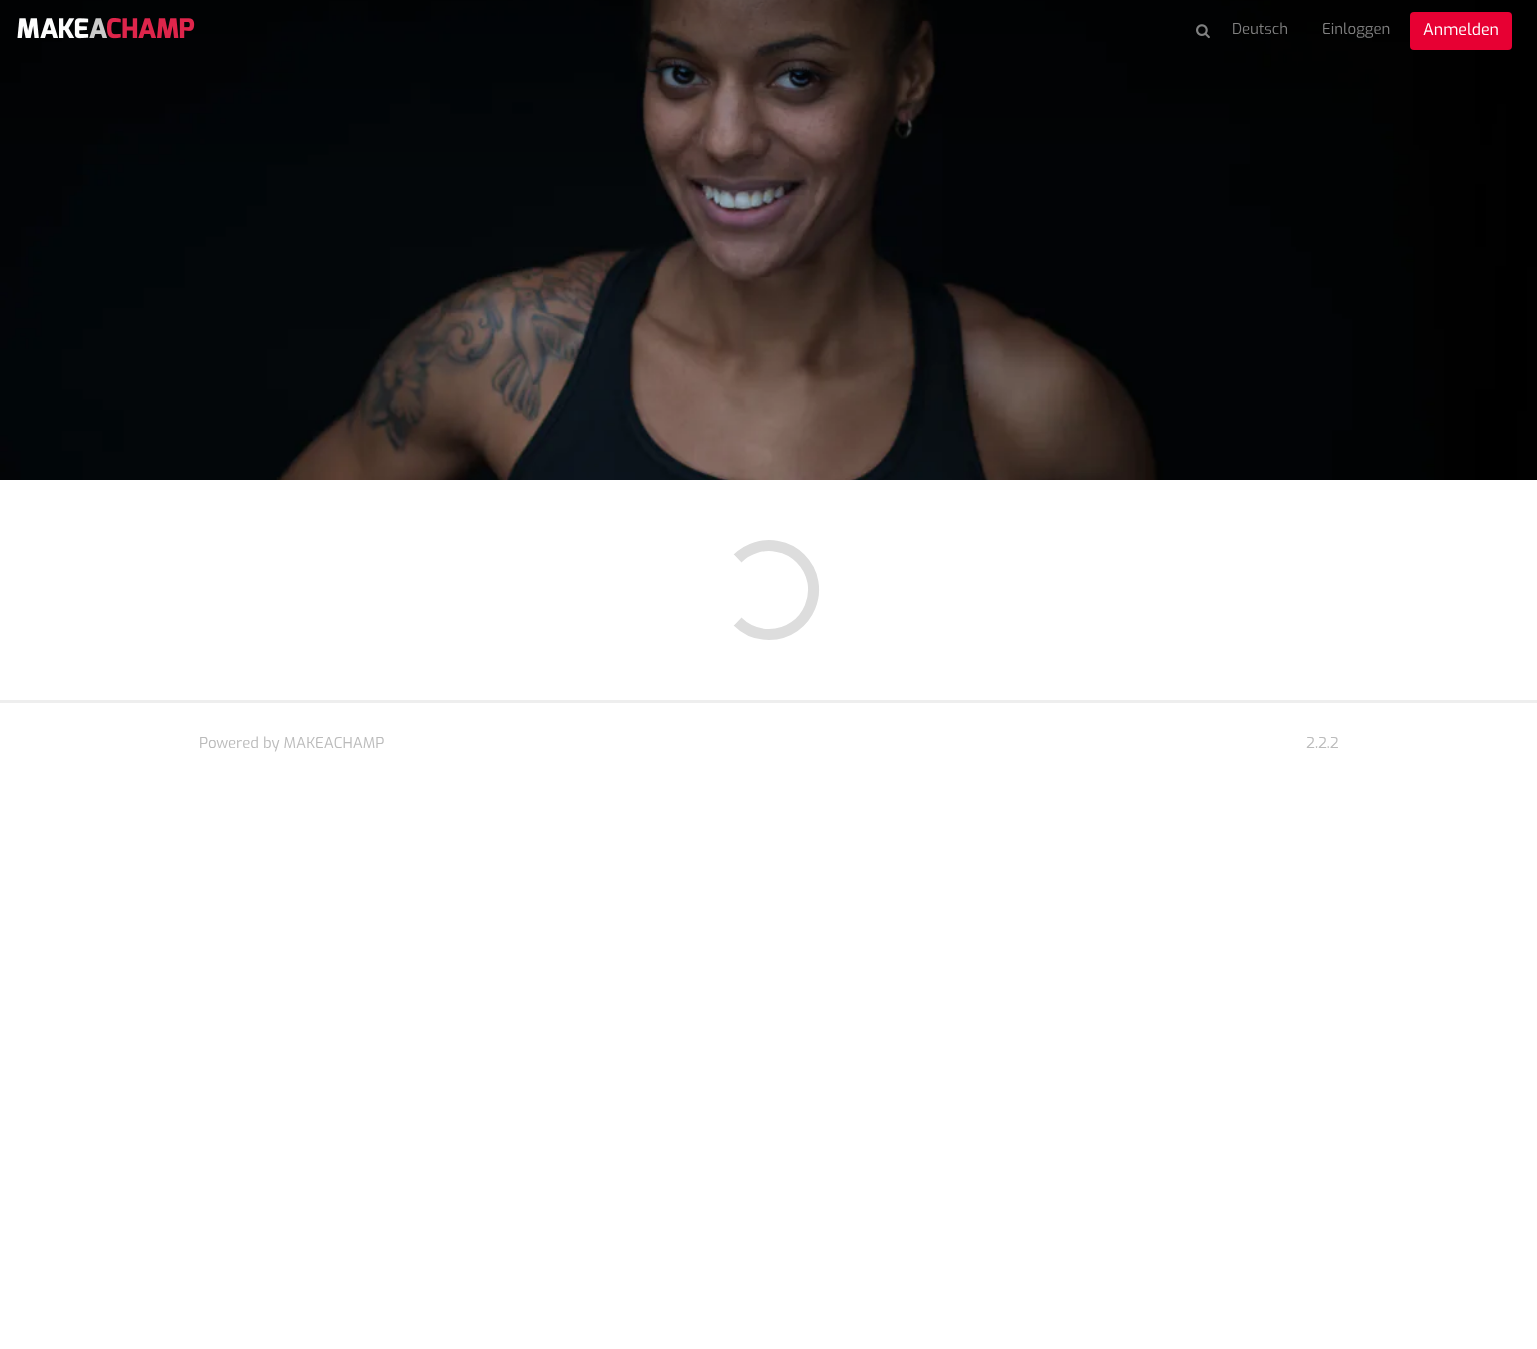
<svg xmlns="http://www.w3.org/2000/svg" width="1537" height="1349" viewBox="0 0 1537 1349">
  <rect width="100%" height="100%" fill="rgb(255,255,255)"/>
  <image x="0" y="0" width="1537" height="480" href="pic1.png"/>
  <image x="17" y="18" width="178" height="21" href="pic2.png"/>
  <image x="1196" y="24" width="14" height="15" href="pic3.png"/>
  <g font-family="Exo" font-size="15" fill="rgb(128,128,128)">
    <text x="1232" y="34">Deutsch</text>
    <text x="1322" y="34">Einloggen</text>
  </g>
  <rect x="1410" y="12" width="102" height="38" rx="4" fill="rgb(231,0,51)"/>
  <text x="1423" y="35" font-family="Exo" font-size="16" fill="rgb(255,255,255)">Anmelden</text>
  <path d="M737.5 558.5C748 548 763.5 543.5 777.5 546.5C786.5 548 794.5 552.5 800.5 558.5C828.5 586.5 808.5 634.5 769 634.5C757.5 634.5 746 630 737.5 621.5" fill="none" stroke="rgb(221,221,221)" stroke-width="11"/>
  <path d="M737.5 621.5C720.5 604.5 720.5 575.5 737.5 558.5" fill="none" stroke="rgb(255,255,255)" stroke-width="11"/>
  <rect x="0" y="700" width="1537" height="3" fill="rgb(238,238,238)"/>
  <g font-family="Exo" font-size="15" fill="rgb(187,187,187)">
    <text x="199" y="748">Powered by MAKEACHAMP</text>
    <text x="1306" y="748">2.2.2</text>
  </g>
</svg>
